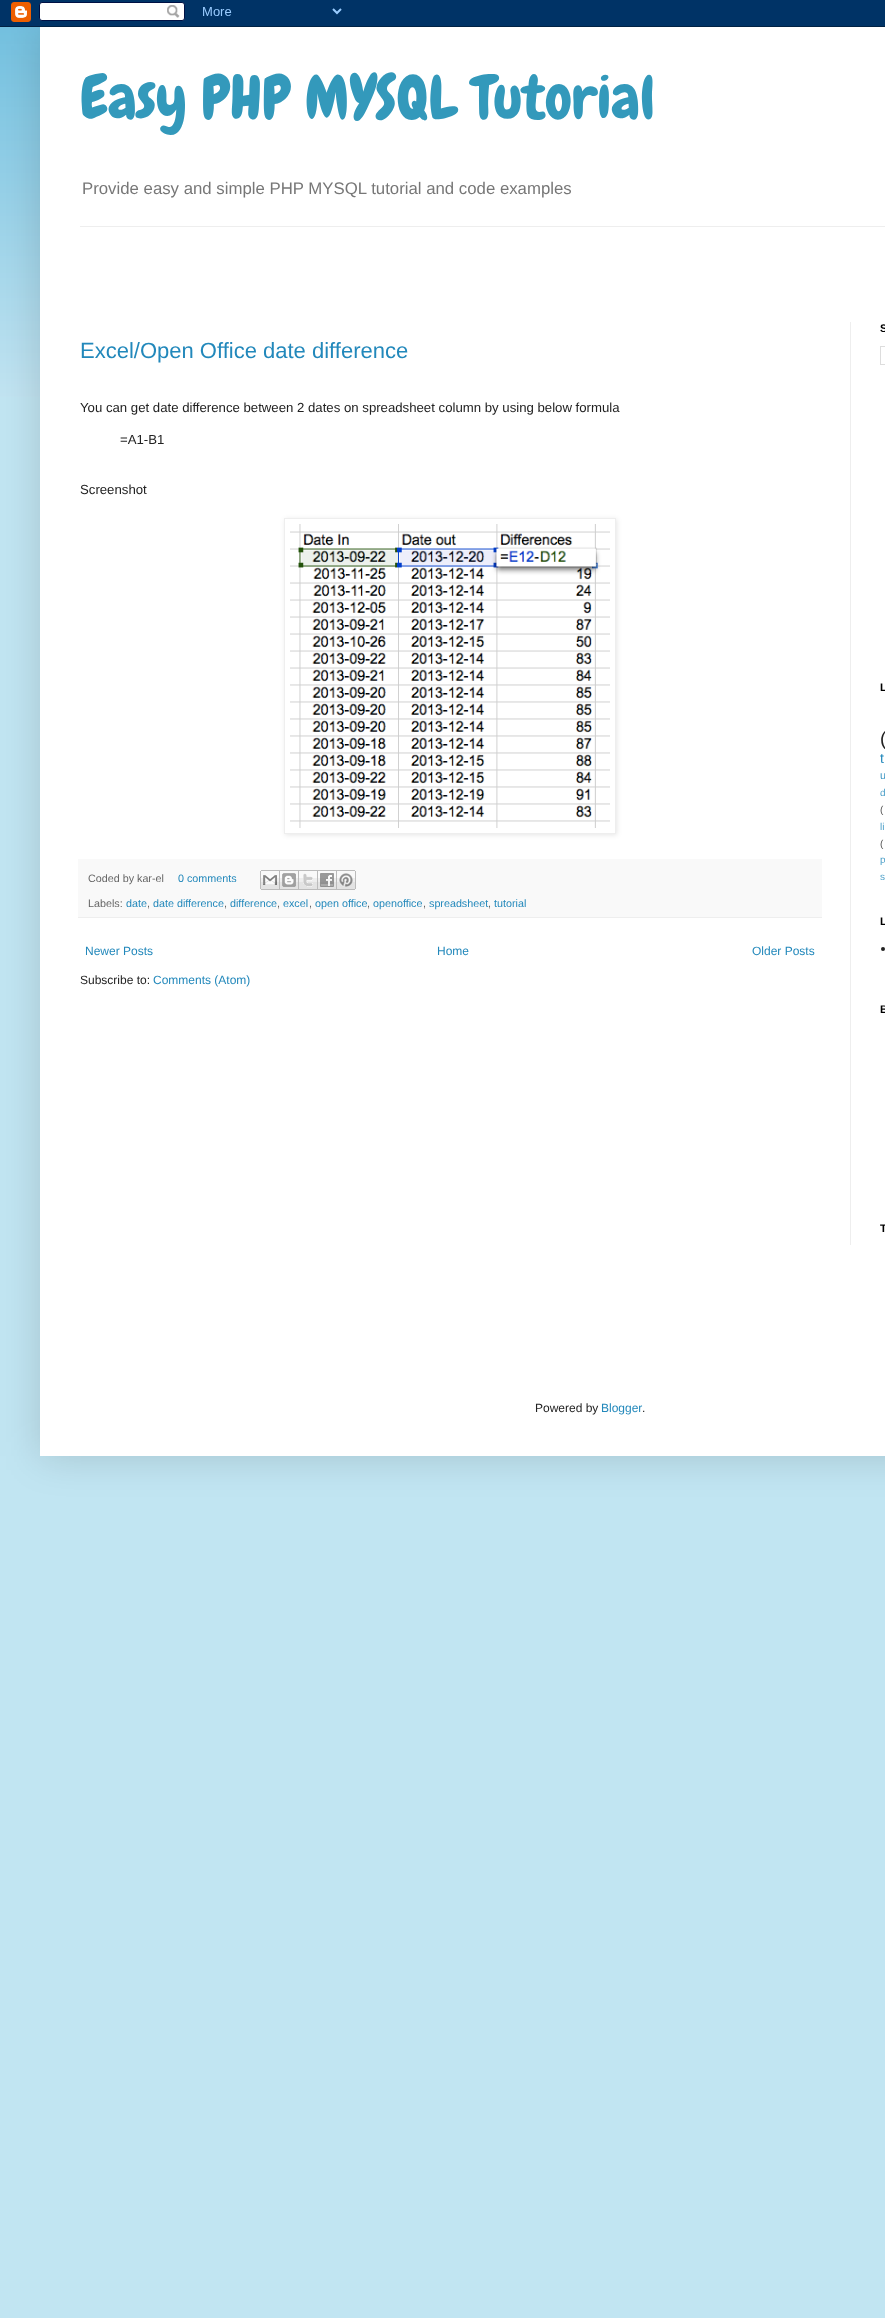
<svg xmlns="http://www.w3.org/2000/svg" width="885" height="2318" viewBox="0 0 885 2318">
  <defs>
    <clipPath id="clip1"><path d="M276 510H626V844H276ZM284 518H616V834H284Z" clip-rule="evenodd"/></clipPath>
  </defs>
  <rect width="100%" height="100%" fill="rgb(193,229,242)"/>
  <rect x="0" y="27" width="40" height="370" fill="rgb(102,187,221)"/>
  <image x="0" y="27" width="40" height="370" href="pic2.png"/>
  <rect x="40" y="27" width="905" height="1429" fill="rgba(0,0,0,0.15)" filter="blur(20px)"/>
  <image x="0" y="0" width="885" height="27" href="pic1.png"/>
  <rect x="40" y="27" width="845" height="1429" fill="rgb(255,255,255)"/>
  <text x="80" y="118" font-family="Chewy" font-size="60" fill="rgb(51,153,187)">Easy PHP MYSQL Tutorial</text>
  <text x="82" y="194" font-family="Liberation Sans" font-size="16.8" fill="rgb(119,119,119)">Provide easy and simple PHP MYSQL tutorial and code examples</text>
  <rect x="80" y="226" width="805" height="1" fill="rgb(238,238,238)"/>
  <rect x="850" y="322" width="1" height="923" fill="rgb(238,238,238)"/>
  <text x="80" y="358" font-family="Liberation Sans" font-size="22" fill="rgb(34,136,187)">Excel/Open Office date difference</text>
  <g font-family="Liberation Sans" font-size="13.2" fill="rgb(34,34,34)">
    <text x="80" y="412">You can get date difference between 2 dates on spreadsheet column by using below formula</text>
    <text x="120" y="444">=A1-B1</text>
    <text x="80" y="494">Screenshot</text>
  </g>
  <g clip-path="url(#clip1)">
    <rect x="285" y="519" width="332" height="316" fill="rgba(0,0,0,0.1)" filter="blur(2.5px)"/>
  </g>
  <rect x="284.5" y="518.5" width="331" height="315" fill="none" stroke="rgb(238,238,238)"/>
  <image x="290" y="524" width="320" height="304" href="pic3.png"/>
  <rect x="78" y="859" width="744" height="58" fill="rgb(249,249,249)"/>
  <rect x="78" y="917" width="744" height="1" fill="rgb(238,238,238)"/>
  <text x="88" y="882" font-family="Liberation Sans" font-size="10.75" fill="rgb(102,102,102)">Coded by kar-el</text>
  <text x="178" y="882" font-family="Liberation Sans" font-size="10.75" fill="rgb(34,136,187)">0 comments</text>
  <image x="260" y="870" width="20" height="20" href="pic4.png"/>
  <image x="280" y="870" width="19" height="20" href="pic5.png"/>
  <image x="299" y="870" width="19" height="20" href="pic6.png"/>
  <image x="318" y="870" width="19" height="20" href="pic7.png"/>
  <image x="337" y="870" width="19" height="20" href="pic8.png"/>
  <text x="88" y="907" font-family="Liberation Sans" font-size="10.75" fill="rgb(102,102,102)">Labels:</text>
  <text x="126" y="907" font-family="Liberation Sans" font-size="10.75" fill="rgb(34,136,187)">date</text>
  <text x="147" y="907" font-family="Liberation Sans" font-size="10.75" fill="rgb(102,102,102)">,</text>
  <text x="153" y="907" font-family="Liberation Sans" font-size="10.75" fill="rgb(34,136,187)">date difference</text>
  <text x="224" y="907" font-family="Liberation Sans" font-size="10.75" fill="rgb(102,102,102)">,</text>
  <text x="230" y="907" font-family="Liberation Sans" font-size="10.75" fill="rgb(34,136,187)">difference</text>
  <text x="277" y="907" font-family="Liberation Sans" font-size="10.75" fill="rgb(102,102,102)">,</text>
  <text x="283" y="907" font-family="Liberation Sans" font-size="10.75" fill="rgb(34,136,187)">excel</text>
  <text x="309" y="907" font-family="Liberation Sans" font-size="10.75" fill="rgb(102,102,102)">,</text>
  <text x="315" y="907" font-family="Liberation Sans" font-size="10.75" fill="rgb(34,136,187)">open office</text>
  <text x="367" y="907" font-family="Liberation Sans" font-size="10.75" fill="rgb(102,102,102)">,</text>
  <text x="373" y="907" font-family="Liberation Sans" font-size="10.75" fill="rgb(34,136,187)">openoffice</text>
  <text x="423" y="907" font-family="Liberation Sans" font-size="10.75" fill="rgb(102,102,102)">,</text>
  <text x="429" y="907" font-family="Liberation Sans" font-size="10.75" fill="rgb(34,136,187)">spreadsheet</text>
  <text x="488" y="907" font-family="Liberation Sans" font-size="10.75" fill="rgb(102,102,102)">,</text>
  <text x="494" y="907" font-family="Liberation Sans" font-size="10.75" fill="rgb(34,136,187)">tutorial</text>
  <g font-family="Liberation Sans" font-size="12" fill="rgb(34,136,187)">
    <text x="85" y="955">Newer Posts</text>
    <text x="437" y="955">Home</text>
    <text x="752" y="955">Older Posts</text>
  </g>
  <text x="80" y="984" font-family="Liberation Sans" font-size="12" fill="rgb(34,34,34)">Subscribe to:</text>
  <text x="153" y="984" font-family="Liberation Sans" font-size="12" fill="rgb(34,136,187)">Comments (Atom)</text>
  <text x="880" y="332" font-family="Liberation Sans" font-size="11" font-weight="bold" fill="rgb(0,0,0)">S</text>
  <rect x="880.5" y="346.5" width="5" height="18" fill="none" stroke="rgb(221,221,221)"/>
  <text x="880" y="691" font-family="Liberation Sans" font-size="11" font-weight="bold" fill="rgb(0,0,0)">L</text>
  <text x="880" y="745" font-family="Liberation Sans" font-size="19" fill="rgb(34,34,34)">(</text>
  <text x="880" y="763" font-family="Liberation Sans" font-size="14" fill="rgb(34,136,187)">t</text>
  <text x="880" y="779" font-family="Liberation Sans" font-size="10.75" fill="rgb(56,148,194)">u</text>
  <text x="880" y="796" font-family="Liberation Sans" font-size="10" fill="rgb(78,160,201)">d</text>
  <text x="880" y="813" font-family="Liberation Sans" font-size="10" fill="rgb(78,78,78)">(</text>
  <text x="880" y="830" font-family="Liberation Sans" font-size="10" fill="rgb(78,160,201)">li</text>
  <text x="880" y="847" font-family="Liberation Sans" font-size="10" fill="rgb(78,78,78)">(</text>
  <g font-family="Liberation Sans" font-size="10" fill="rgb(78,160,201)">
    <text>
      <tspan x="880" y="863">p</tspan>
      <tspan x="880" y="880">s</tspan>
    </text>
  </g>
  <text x="880" y="925" font-family="Liberation Sans" font-size="11" font-weight="bold" fill="rgb(0,0,0)">L</text>
  <circle cx="883" cy="949" r="2" fill="rgb(34,34,34)"/>
  <g font-family="Liberation Sans" font-size="11" font-weight="bold" fill="rgb(0,0,0)">
    <text x="880" y="1013">B</text>
    <text x="880" y="1232">T</text>
  </g>
  <text x="535" y="1412" font-family="Liberation Sans" font-size="12" fill="rgb(34,34,34)">Powered by</text>
  <text x="601" y="1412" font-family="Liberation Sans" font-size="12" fill="rgb(34,136,187)">Blogger</text>
  <text x="642" y="1412" font-family="Liberation Sans" font-size="12" fill="rgb(34,34,34)">.</text>
</svg>
